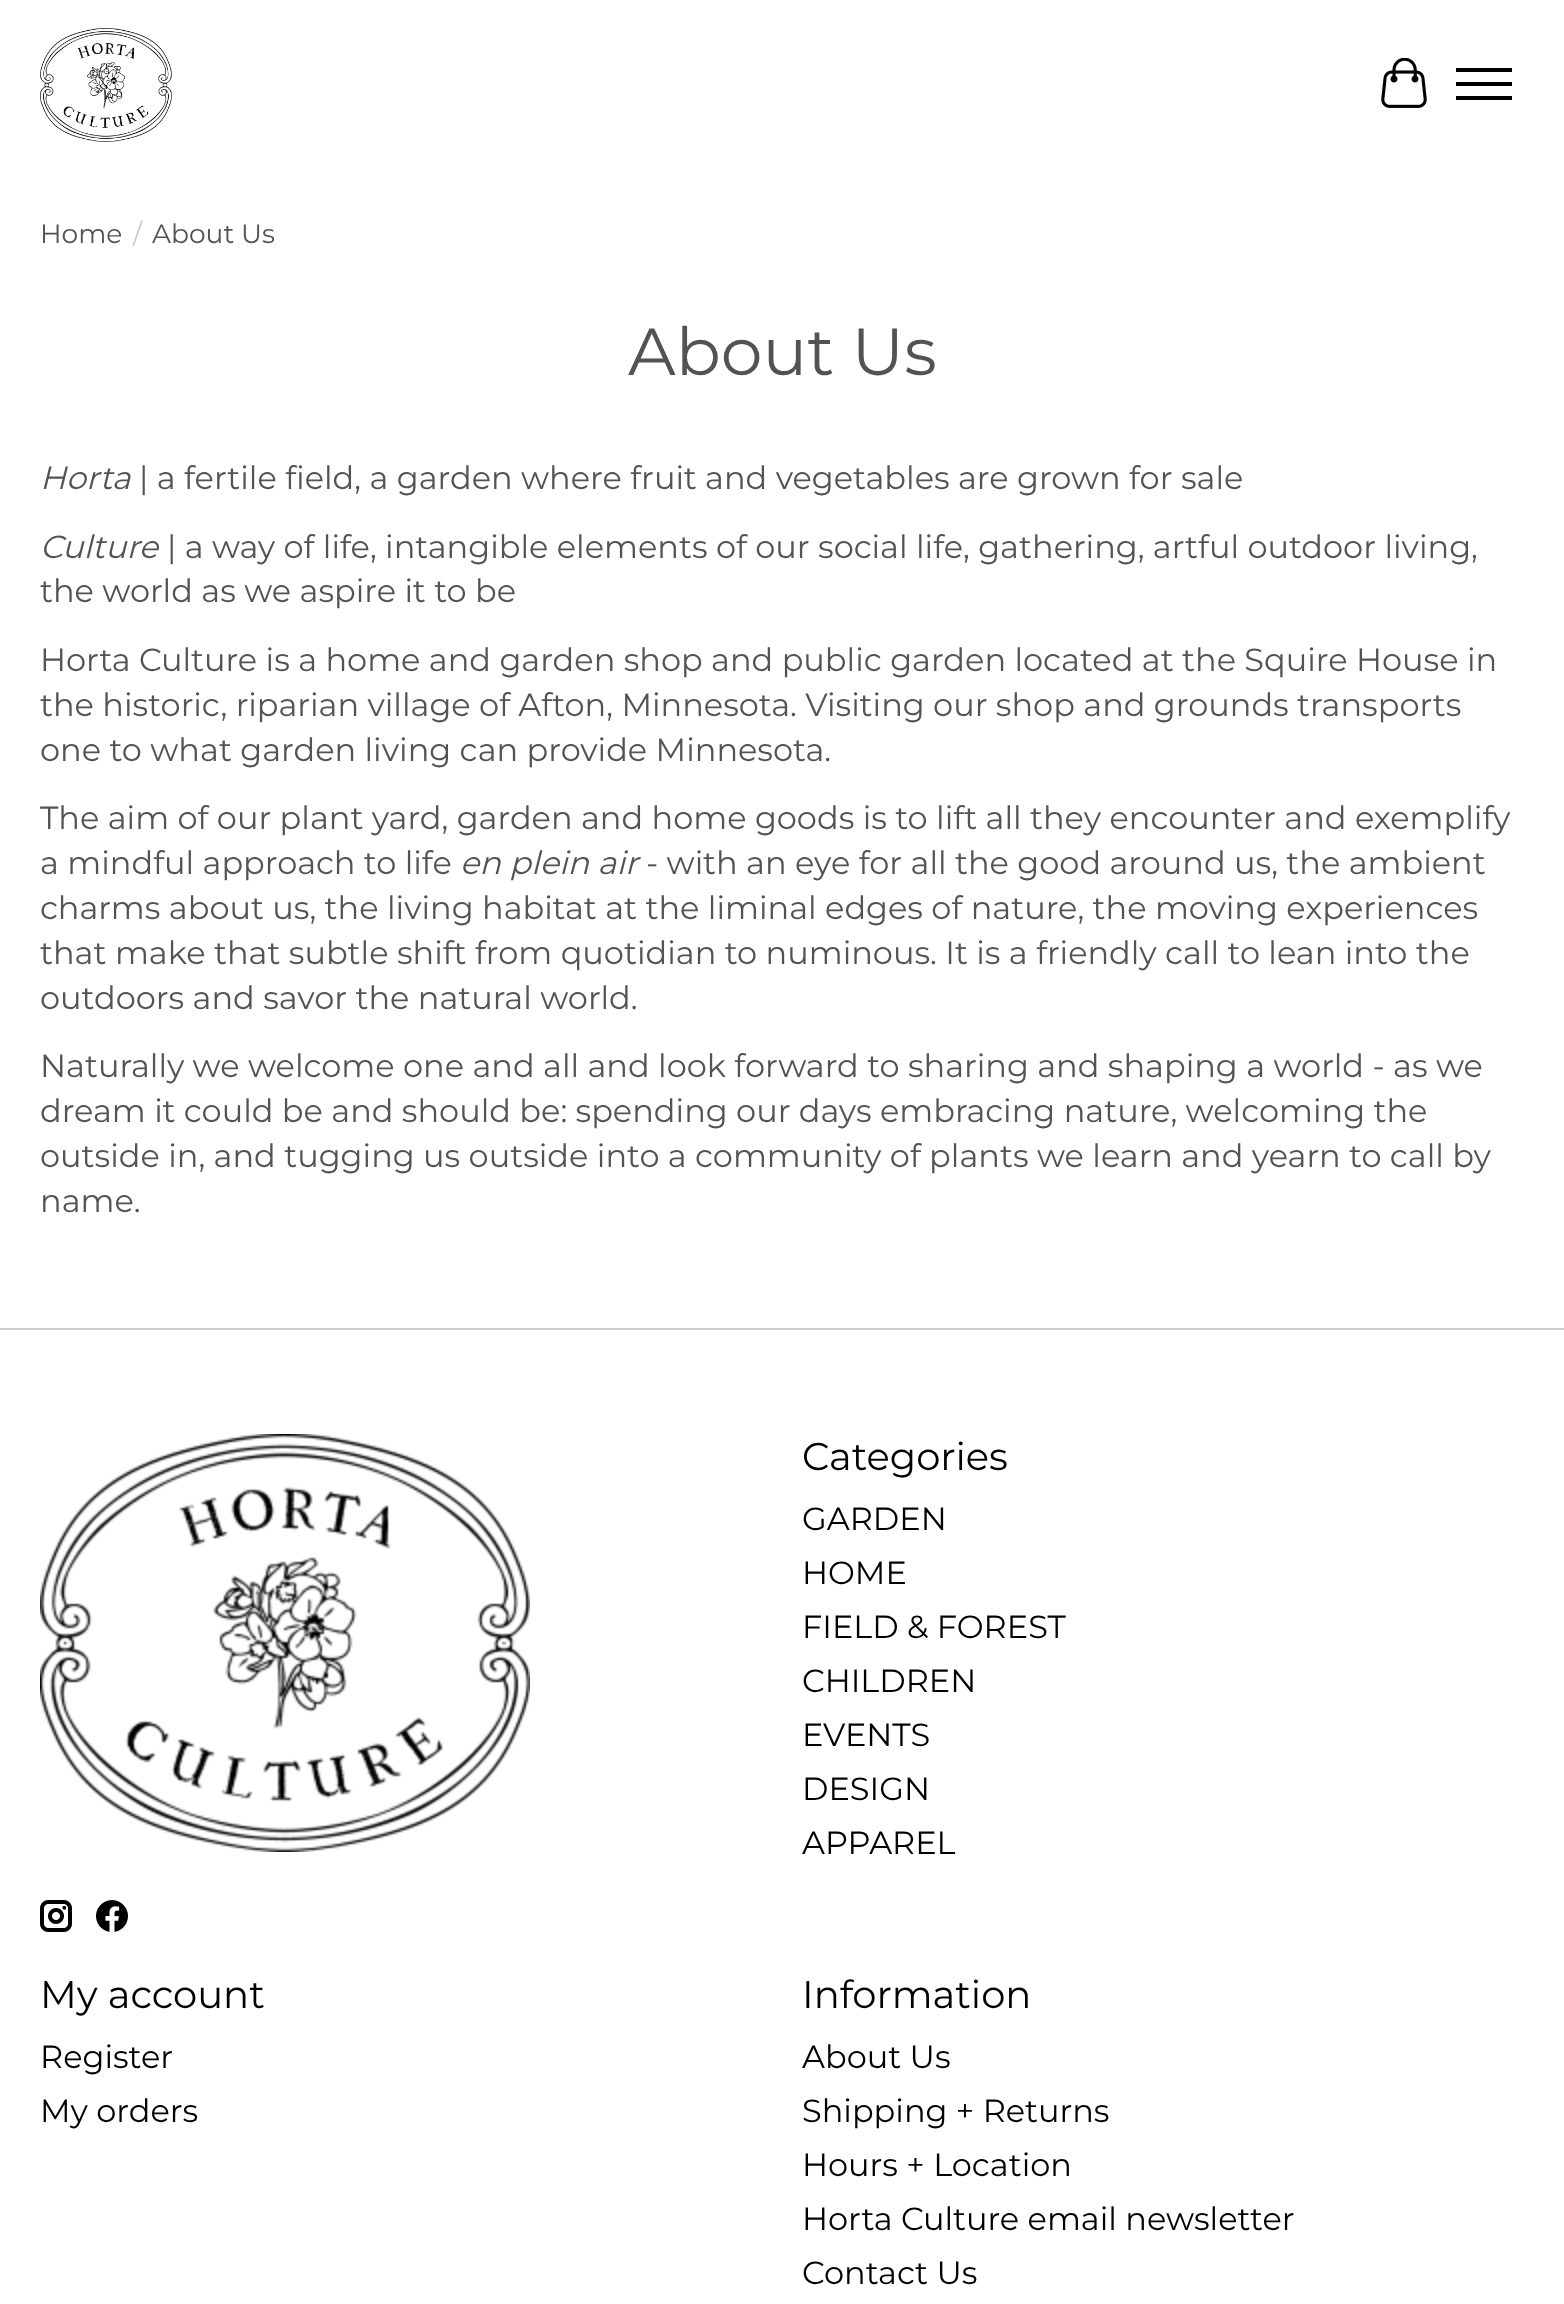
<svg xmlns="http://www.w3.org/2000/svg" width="1564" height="2304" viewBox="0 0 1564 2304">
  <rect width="100%" height="100%" fill="rgb(255,255,255)"/>
  <image x="40" y="28" width="132" height="114" href="pic1.png"/>
  <image x="1381" y="58" width="46" height="50" href="pic2.png"/>
  <rect x="1456" y="82" width="56" height="4" fill="rgb(0,0,0)"/>
  <rect x="1456" y="68" width="56" height="4" fill="rgb(0,0,0)"/>
  <rect x="1456" y="96" width="56" height="4" fill="rgb(0,0,0)"/>
  <text x="40" y="243" font-family="Montserrat" font-size="26.5" fill="rgb(83,83,83)">Home</text>
  <text x="133" y="243" font-family="Montserrat" font-size="26.5" fill="rgb(203,203,203)">/</text>
  <text x="152" y="243" font-family="Montserrat" font-size="26.5" fill="rgb(83,83,83)">About Us</text>
  <text x="628" y="375" font-family="Montserrat" font-size="66.5" fill="rgb(83,83,83)">About Us</text>
  <text x="40" y="489" font-family="Montserrat" font-size="32" font-style="italic" fill="rgb(83,83,83)">Horta</text>
  <text x="139" y="489" font-family="Montserrat" font-size="32" fill="rgb(83,83,83)">| a fertile field, a garden where fruit and vegetables are grown for sale</text>
  <text x="40" y="558" font-family="Montserrat" font-size="32" font-style="italic" fill="rgb(83,83,83)">Culture</text>
  <g font-family="Montserrat" font-size="32" fill="rgb(83,83,83)">
    <text x="167" y="558">| a way of life, intangible elements of our social life, gathering, artful outdoor living,</text>
    <text x="40" y="602">the world as we aspire it to be</text>
    <text>
      <tspan x="40" y="671">Horta Culture is a home and garden shop and public garden located at the Squire House in</tspan>
      <tspan x="40" y="716">the historic, riparian village of Afton, Minnesota. Visiting our shop and grounds transports</tspan>
      <tspan x="40" y="761">one to what garden living can provide Minnesota.</tspan>
    </text>
    <text>
      <tspan x="40" y="829">The aim of our plant yard, garden and home goods is to lift all they encounter and exemplify</tspan>
      <tspan x="40" y="874">a mindful approach to life</tspan>
    </text>
  </g>
  <text x="460" y="874" font-family="Montserrat" font-size="32" font-style="italic" fill="rgb(83,83,83)">en plein air</text>
  <g font-family="Montserrat" font-size="32" fill="rgb(83,83,83)">
    <text x="646" y="874">- with an eye for all the good around us, the ambient</text>
    <text>
      <tspan x="40" y="919">charms about us, the living habitat at the liminal edges of nature, the moving experiences</tspan>
      <tspan x="40" y="964">that make that subtle shift from quotidian to numinous. It is a friendly call to lean into the</tspan>
      <tspan x="40" y="1009">outdoors and savor the natural world.</tspan>
    </text>
    <text>
      <tspan x="40" y="1077">Naturally we welcome one and all and look forward to sharing and shaping a world - as we</tspan>
      <tspan x="40" y="1122">dream it could be and should be: spending our days embracing nature, welcoming the</tspan>
      <tspan x="40" y="1167">outside in, and tugging us outside into a community of plants we learn and yearn to call by</tspan>
      <tspan x="40" y="1212">name.</tspan>
    </text>
  </g>
  <rect x="0" y="1328" width="1564" height="2" fill="rgb(204,204,204)"/>
  <image x="40" y="1434" width="490" height="418" href="pic3.png"/>
  <image x="40" y="1900" width="32" height="32" href="pic4.png"/>
  <image x="96" y="1900" width="32" height="32" href="pic5.png"/>
  <text x="802" y="1470" font-family="Montserrat" font-size="38.5" fill="rgb(0,0,0)">Categories</text>
  <g font-family="Montserrat" font-size="32" fill="rgb(0,0,0)">
    <text>
      <tspan x="802" y="1530">GARDEN</tspan>
      <tspan x="802" y="1584">HOME</tspan>
      <tspan x="802" y="1638">FIELD &amp; FOREST</tspan>
      <tspan x="802" y="1692">CHILDREN</tspan>
      <tspan x="802" y="1746">EVENTS</tspan>
      <tspan x="802" y="1800">DESIGN</tspan>
      <tspan x="802" y="1854">APPAREL</tspan>
    </text>
  </g>
  <text x="40" y="2008" font-family="Montserrat" font-size="38.5" fill="rgb(0,0,0)">My account</text>
  <g font-family="Montserrat" font-size="32" fill="rgb(0,0,0)">
    <text>
      <tspan x="40" y="2068">Register</tspan>
      <tspan x="40" y="2122">My orders</tspan>
    </text>
  </g>
  <text x="802" y="2008" font-family="Montserrat" font-size="38.5" fill="rgb(0,0,0)">Information</text>
  <g font-family="Montserrat" font-size="32" fill="rgb(0,0,0)">
    <text>
      <tspan x="802" y="2068">About Us</tspan>
      <tspan x="802" y="2122">Shipping + Returns</tspan>
      <tspan x="802" y="2176">Hours + Location</tspan>
      <tspan x="802" y="2230">Horta Culture email newsletter</tspan>
      <tspan x="802" y="2284">Contact Us</tspan>
    </text>
  </g>
</svg>
